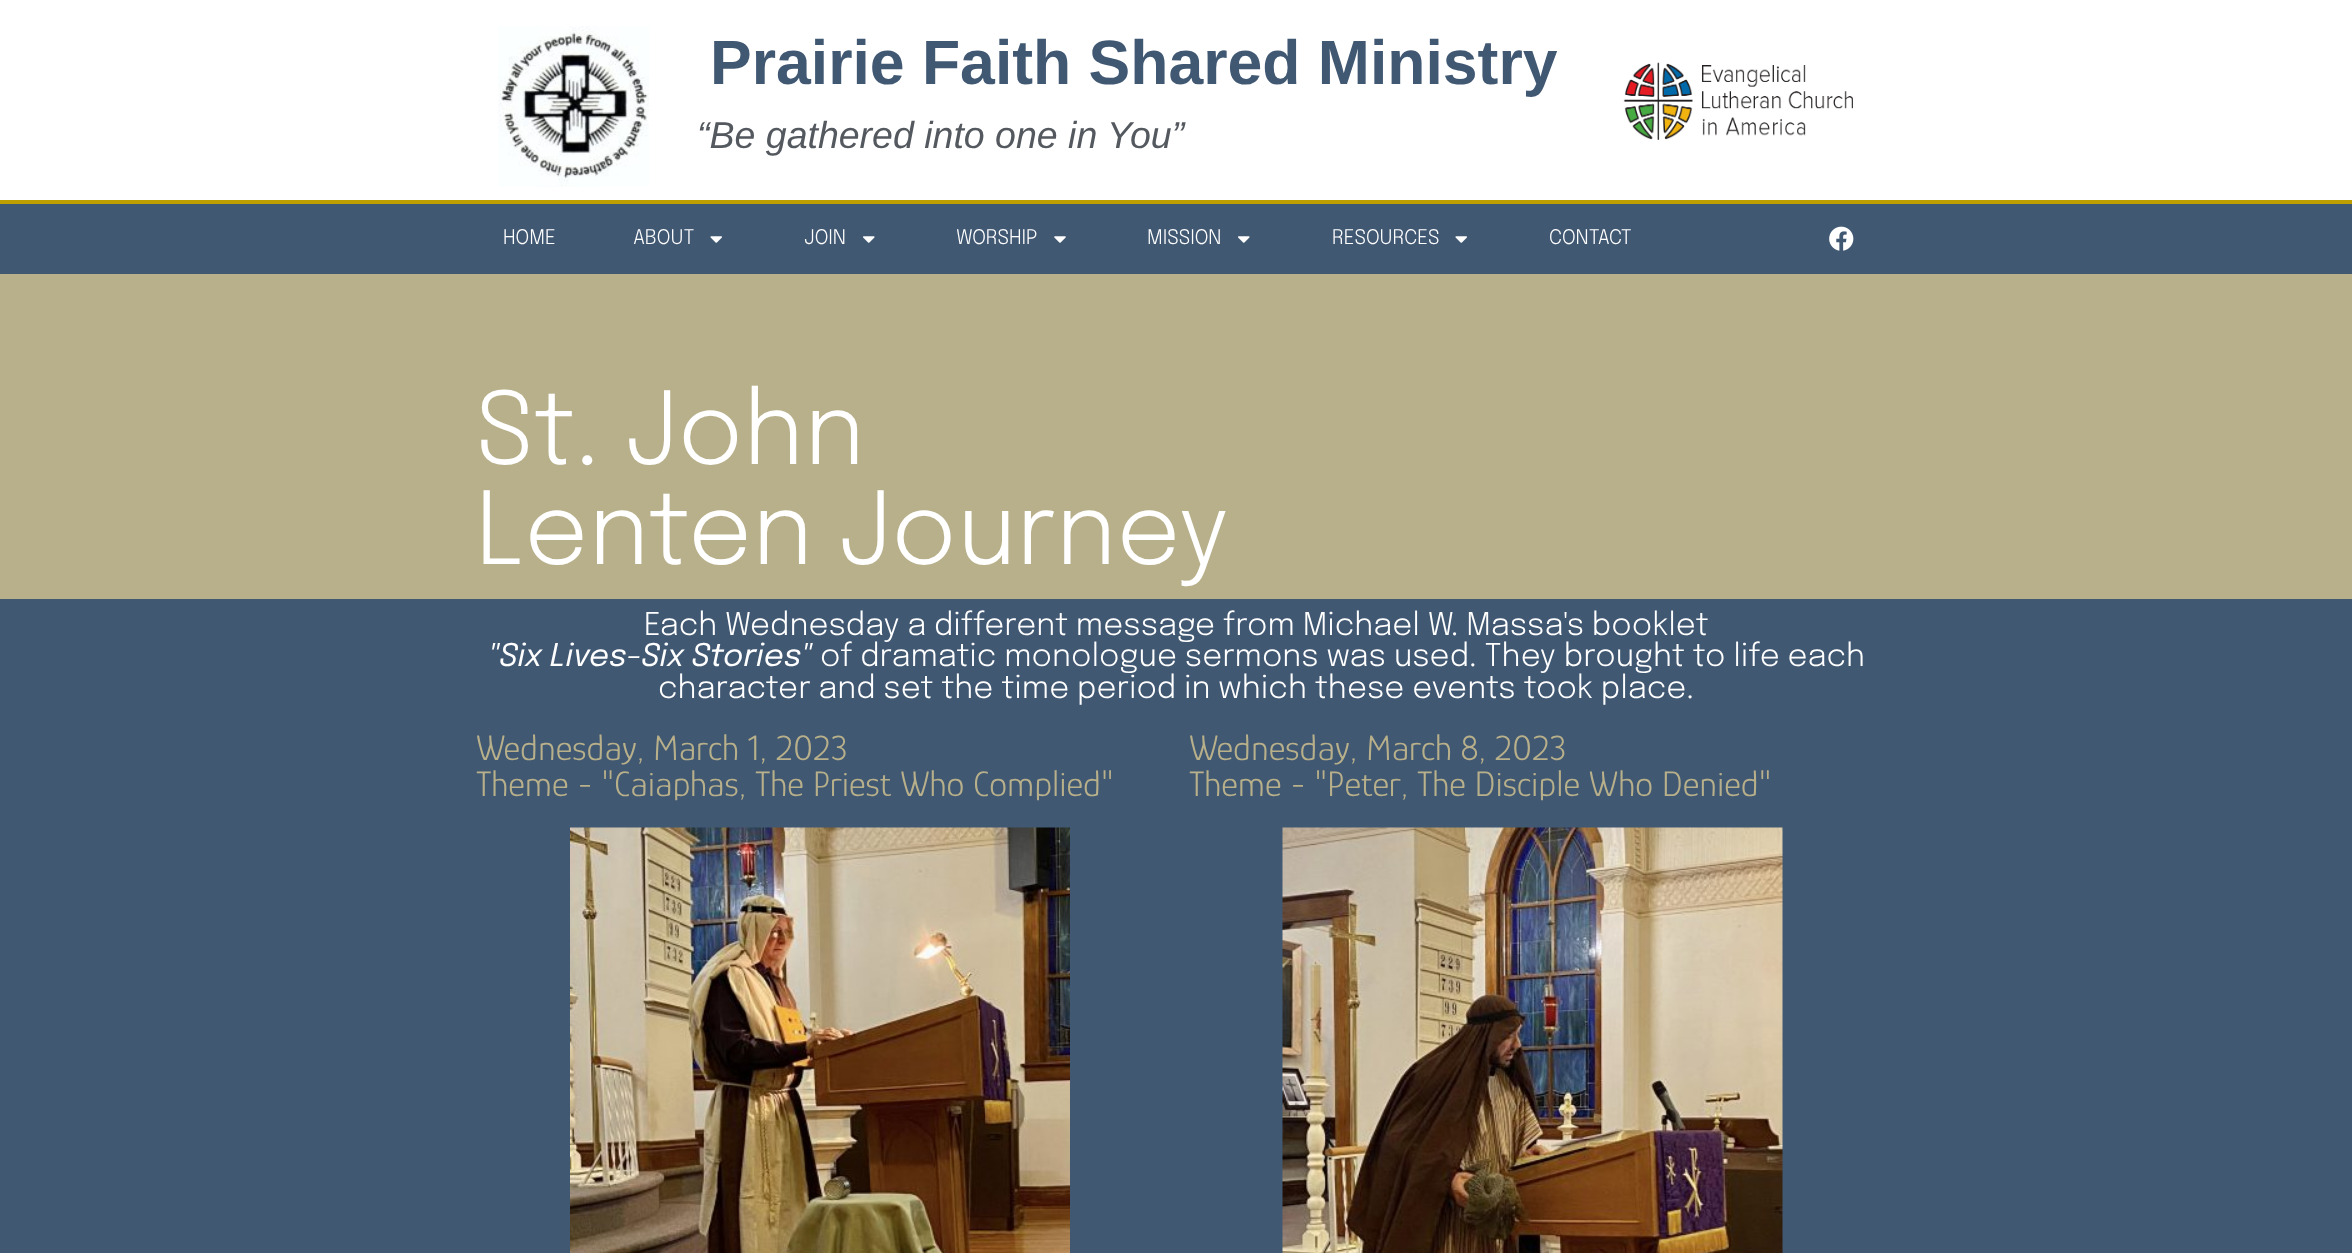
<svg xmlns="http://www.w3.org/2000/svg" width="2352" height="1253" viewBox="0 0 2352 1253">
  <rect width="100%" height="100%" fill="rgb(255,255,255)"/>
  <image x="498" y="26" width="151" height="161" href="pic1.png"/>
  <text x="710" y="84" font-family="Liberation Sans" font-size="62.5" font-weight="bold" fill="rgb(65,88,115)">Prairie Faith Shared Ministry</text>
  <text x="697" y="148" font-family="Liberation Sans" font-size="37.5" font-style="italic" fill="rgb(84,89,95)">“Be gathered into one in You”</text>
  <image x="1623" y="62" width="230" height="78" href="pic2.png"/>
  <rect x="0" y="204" width="2352" height="70" fill="rgb(65,88,115)"/>
  <rect x="0" y="200" width="2352" height="4" fill="rgb(191,159,0)"/>
  <g font-family="Epilogue" font-size="20" font-weight="300" fill="rgb(255,255,255)">
    <text x="503" y="244">HOME</text>
    <text x="633" y="244">ABOUT</text>
  </g>
  <image x="710" y="236" width="12" height="7" href="pic3.png"/>
  <text x="804" y="244" font-family="Epilogue" font-size="20" font-weight="300" fill="rgb(255,255,255)">JOIN</text>
  <image x="863" y="236" width="12" height="7" href="pic4.png"/>
  <text x="956" y="244" font-family="Epilogue" font-size="20" font-weight="300" fill="rgb(255,255,255)">WORSHIP</text>
  <image x="1054" y="236" width="12" height="7" href="pic5.png"/>
  <text x="1147" y="244" font-family="Epilogue" font-size="20" font-weight="300" fill="rgb(255,255,255)">MISSION</text>
  <image x="1238" y="236" width="12" height="7" href="pic4.png"/>
  <text x="1332" y="244" font-family="Epilogue" font-size="20" font-weight="300" fill="rgb(255,255,255)">RESOURCES</text>
  <image x="1455" y="236" width="12" height="7" href="pic3.png"/>
  <text x="1549" y="244" font-family="Epilogue" font-size="20" font-weight="300" fill="rgb(255,255,255)">CONTACT</text>
  <image x="1829" y="226" width="25" height="25" href="pic6.png"/>
  <rect x="0" y="274" width="2352" height="325" fill="rgb(184,176,138)"/>
  <g font-family="Epilogue" font-size="100" font-weight="300" fill="rgb(255,255,255)">
    <text>
      <tspan x="476" y="464">St. John</tspan>
      <tspan x="476" y="564">Lenten Journey</tspan>
    </text>
  </g>
  <rect x="0" y="599" width="2352" height="654" fill="rgb(65,88,115)"/>
  <text x="644" y="635" font-family="Epilogue" font-size="31.25" font-weight="300" fill="rgb(255,255,255)">Each Wednesday a different message from Michael W. Massa's booklet</text>
  <text x="488" y="666" font-family="Epilogue" font-size="31.25" font-style="italic" fill="rgb(255,255,255)">"Six Lives-Six Stories"</text>
  <g font-family="Epilogue" font-size="31.25" font-weight="300" fill="rgb(255,255,255)">
    <text x="820" y="666">of dramatic monologue sermons was used. They brought to life each</text>
    <text x="658" y="698">character and set the time period in which these events took place.</text>
  </g>
  <g font-family="Glory" font-size="36.25" font-weight="300" fill="rgb(184,176,138)">
    <text>
      <tspan x="476" y="760">Wednesday, March 1, 2023</tspan>
      <tspan x="476" y="796">Theme - "Caiaphas, The Priest Who Complied"</tspan>
    </text>
  </g>
  <image x="570" y="827" width="500" height="426" href="pic7.png"/>
  <g font-family="Glory" font-size="36.25" font-weight="300" fill="rgb(184,176,138)">
    <text>
      <tspan x="1189" y="760">Wednesday, March 8, 2023</tspan>
      <tspan x="1189" y="796">Theme - "Peter, The Disciple Who Denied"</tspan>
    </text>
  </g>
  <image x="1282" y="827" width="501" height="426" href="pic8.png"/>
</svg>
